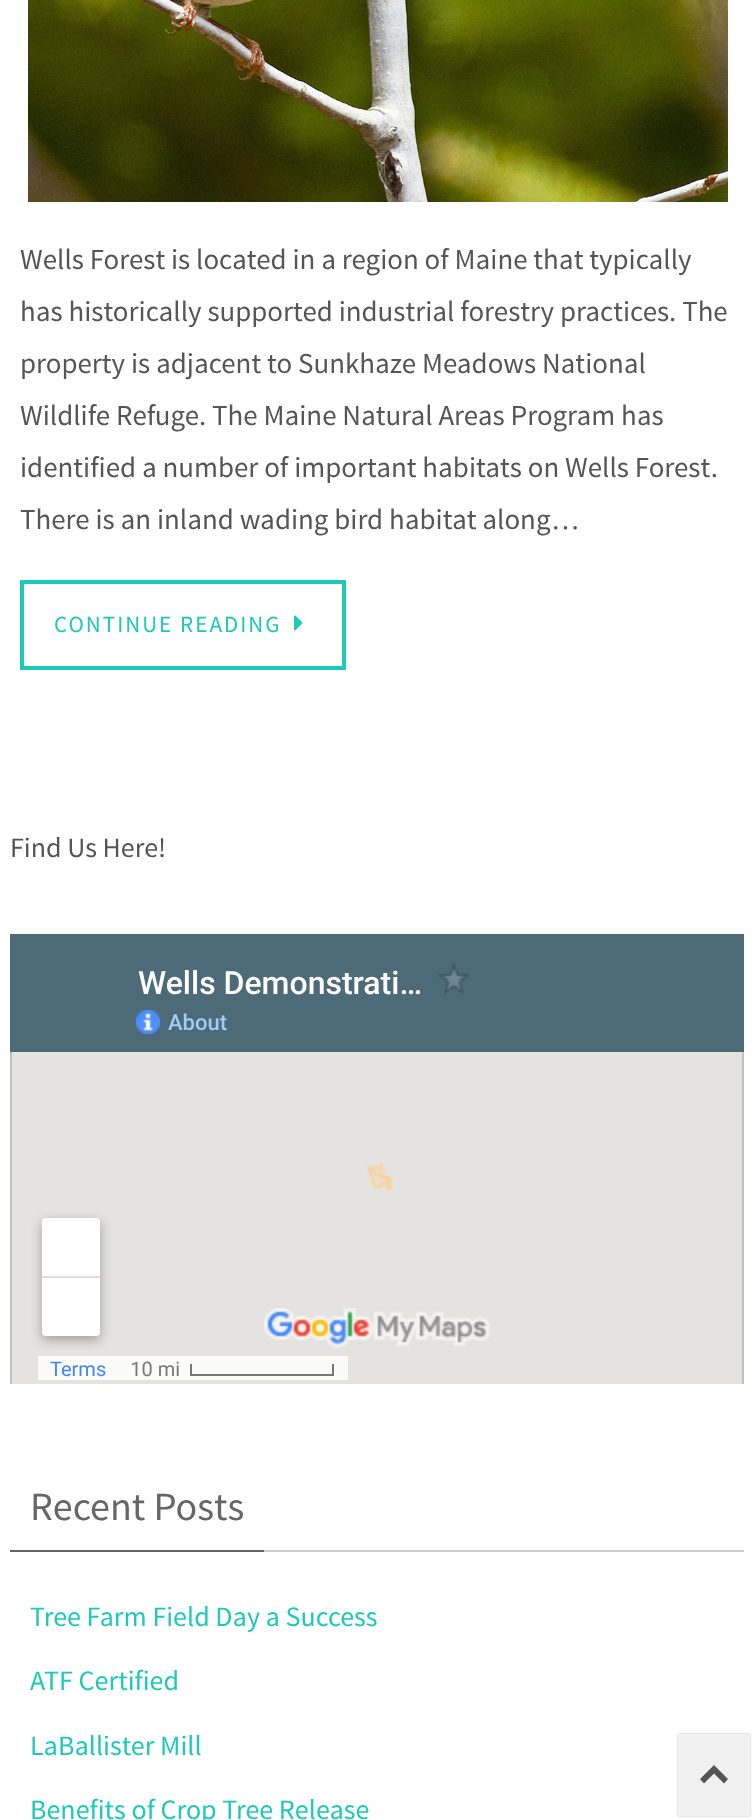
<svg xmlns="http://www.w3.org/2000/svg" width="753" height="1820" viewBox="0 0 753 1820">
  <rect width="100%" height="100%" fill="rgb(255,255,255)"/>
  <image x="28" y="0" width="700" height="202" href="pic1.png"/>
  <g font-family="Source Sans Pro" font-size="28.9" fill="rgb(85,85,85)">
    <text>
      <tspan x="20" y="269">Wells Forest is located in a region of Maine that typically</tspan>
      <tspan x="20" y="321">has historically supported industrial forestry practices. The</tspan>
      <tspan x="20" y="373">property is adjacent to Sunkhaze Meadows National</tspan>
      <tspan x="20" y="425">Wildlife Refuge. The Maine Natural Areas Program has</tspan>
      <tspan x="20" y="477">identified a number of important habitats on Wells Forest.</tspan>
      <tspan x="20" y="529">There is an inland wading bird habitat along</tspan>
    </text>
  </g>
  <text x="551" y="529" font-family="Liberation Serif" font-size="28.9" fill="rgb(85,85,85)">…</text>
  <rect x="22" y="582" width="322" height="86" fill="none" stroke="rgb(30,200,187)" stroke-width="4"/>
  <text x="54" y="632" font-family="Source Sans Pro" font-size="23.1" letter-spacing="2" fill="rgb(30,200,187)">CONTINUE READING</text>
  <image x="294" y="615" width="9" height="16" href="pic2.png"/>
  <text x="10" y="857" font-family="Source Sans Pro" font-size="28" fill="rgb(85,85,85)">Find Us Here!</text>
  <image x="10" y="934" width="734" height="450" href="pic3.png"/>
  <rect x="264" y="1550" width="480" height="2" fill="rgb(204,204,204)"/>
  <rect x="10" y="1550" width="254" height="2" fill="rgb(102,102,102)"/>
  <text x="30" y="1520" font-family="Source Sans Pro" font-size="40" fill="rgb(102,102,102)">Recent Posts</text>
  <g font-family="Source Sans Pro" font-size="28" fill="rgb(30,200,187)">
    <text x="30" y="1626">Tree Farm Field Day a Success</text>
    <text x="30" y="1690">ATF Certified</text>
    <text x="30" y="1755">LaBallister Mill</text>
    <text x="30" y="1819">Benefits of Crop Tree Release</text>
  </g>
  <rect x="678" y="1734" width="72" height="82" fill="rgba(0,0,0,0.28)" filter="blur(1px)"/>
  <rect x="679" y="1735" width="70" height="80" fill="rgb(240,240,240)" stroke="rgb(242,242,242)" stroke-width="2"/>
  <path d="M700 1779L714 1765L728 1779L724 1783.5L714 1773.5L704 1783.5Z" fill="rgb(85,85,85)"/>
</svg>
